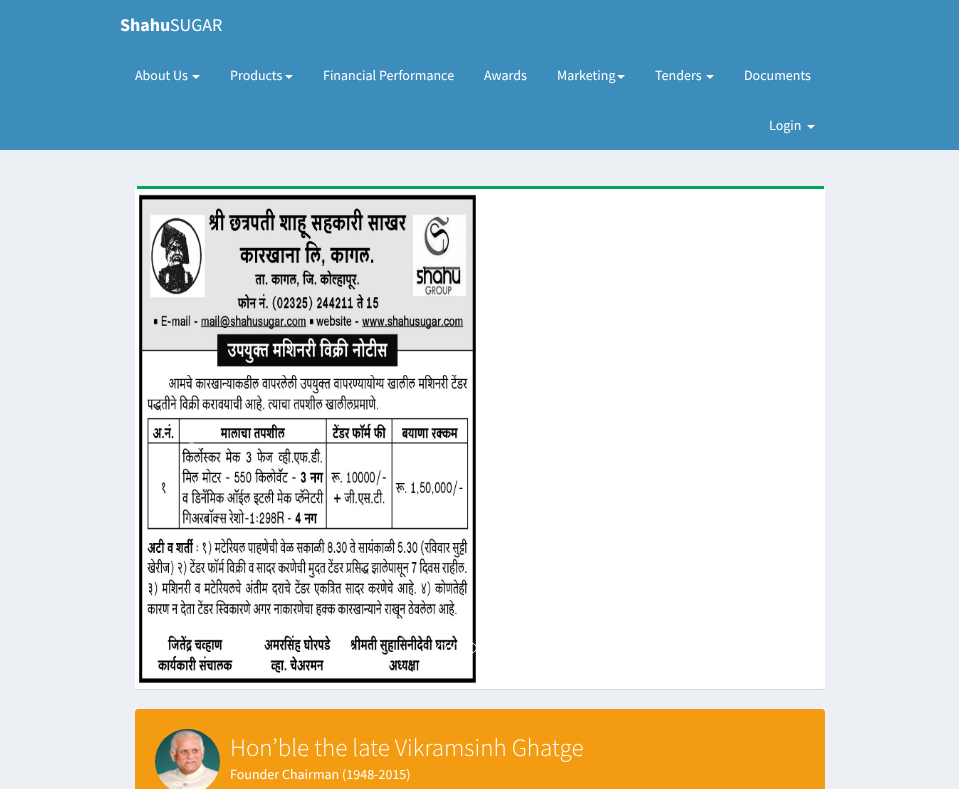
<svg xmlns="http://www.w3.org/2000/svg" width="959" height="789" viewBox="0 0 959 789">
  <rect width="100%" height="100%" fill="rgb(236,240,245)"/>
  <rect x="0" y="0" width="959" height="150" fill="rgb(60,141,188)"/>
  <text x="120" y="31" font-family="Source Sans Pro" font-size="18" font-weight="bold" fill="rgb(255,255,255)">Shahu</text>
  <text x="170" y="31" font-family="Source Sans Pro" font-size="18" fill="rgb(255,255,255)">SUGAR</text>
  <text x="135" y="80" font-family="Source Sans Pro" font-size="14" fill="rgb(255,255,255)">About Us</text>
  <path d="M192 75H200L196 79Z" fill="rgb(255,255,255)"/>
  <text x="230" y="80" font-family="Source Sans Pro" font-size="14" fill="rgb(255,255,255)">Products</text>
  <path d="M285 75H293L289 79Z" fill="rgb(255,255,255)"/>
  <g font-family="Source Sans Pro" font-size="14" fill="rgb(255,255,255)">
    <text x="323" y="80">Financial Performance</text>
    <text x="484" y="80">Awards</text>
    <text x="557" y="80">Marketing</text>
  </g>
  <path d="M617 75H625L621 79Z" fill="rgb(255,255,255)"/>
  <text x="655" y="80" font-family="Source Sans Pro" font-size="14" fill="rgb(255,255,255)">Tenders</text>
  <path d="M706 75H714L710 79Z" fill="rgb(255,255,255)"/>
  <g font-family="Source Sans Pro" font-size="14" fill="rgb(255,255,255)">
    <text x="744" y="80">Documents</text>
    <text x="769" y="130">Login</text>
  </g>
  <path d="M807 125H815L811 129Z" fill="rgb(255,255,255)"/>
  <rect x="135" y="187" width="690" height="503" rx="3" fill="rgba(0,0,0,0.1)" filter="blur(0.5px)"/>
  <rect x="135" y="186" width="690" height="503" rx="3" fill="rgb(255,255,255)"/>
  <rect x="137" y="186" width="687" height="3" fill="rgb(0,166,90)"/>
  <image x="135" y="194" width="341" height="495" href="pic1.png"/>
  <image x="188" y="442" width="12" height="8" href="pic2.png"/>
  <circle cx="442" cy="648" r="4.5" fill="none" stroke="rgb(255,255,255)"/>
  <circle cx="457" cy="648" r="4.5" fill="none" stroke="rgb(255,255,255)"/>
  <circle cx="472" cy="648" r="4.5" fill="none" stroke="rgb(255,255,255)"/>
  <path d="M138 709H822C823.5 709 825 710.5 825 712V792H135V712C135 710.5 136.5 709 138 709Z" fill="rgb(243,156,18)"/>
  <image x="155" y="729" width="65" height="60" href="pic3.png"/>
  <text x="230" y="756" font-family="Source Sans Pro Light" font-size="25" font-weight="300" fill="rgb(255,255,255)">Hon’ble the late Vikramsinh Ghatge</text>
  <text x="230" y="779" font-family="Source Sans Pro" font-size="14" fill="rgb(255,255,255)">Founder Chairman (1948-2015)</text>
</svg>
